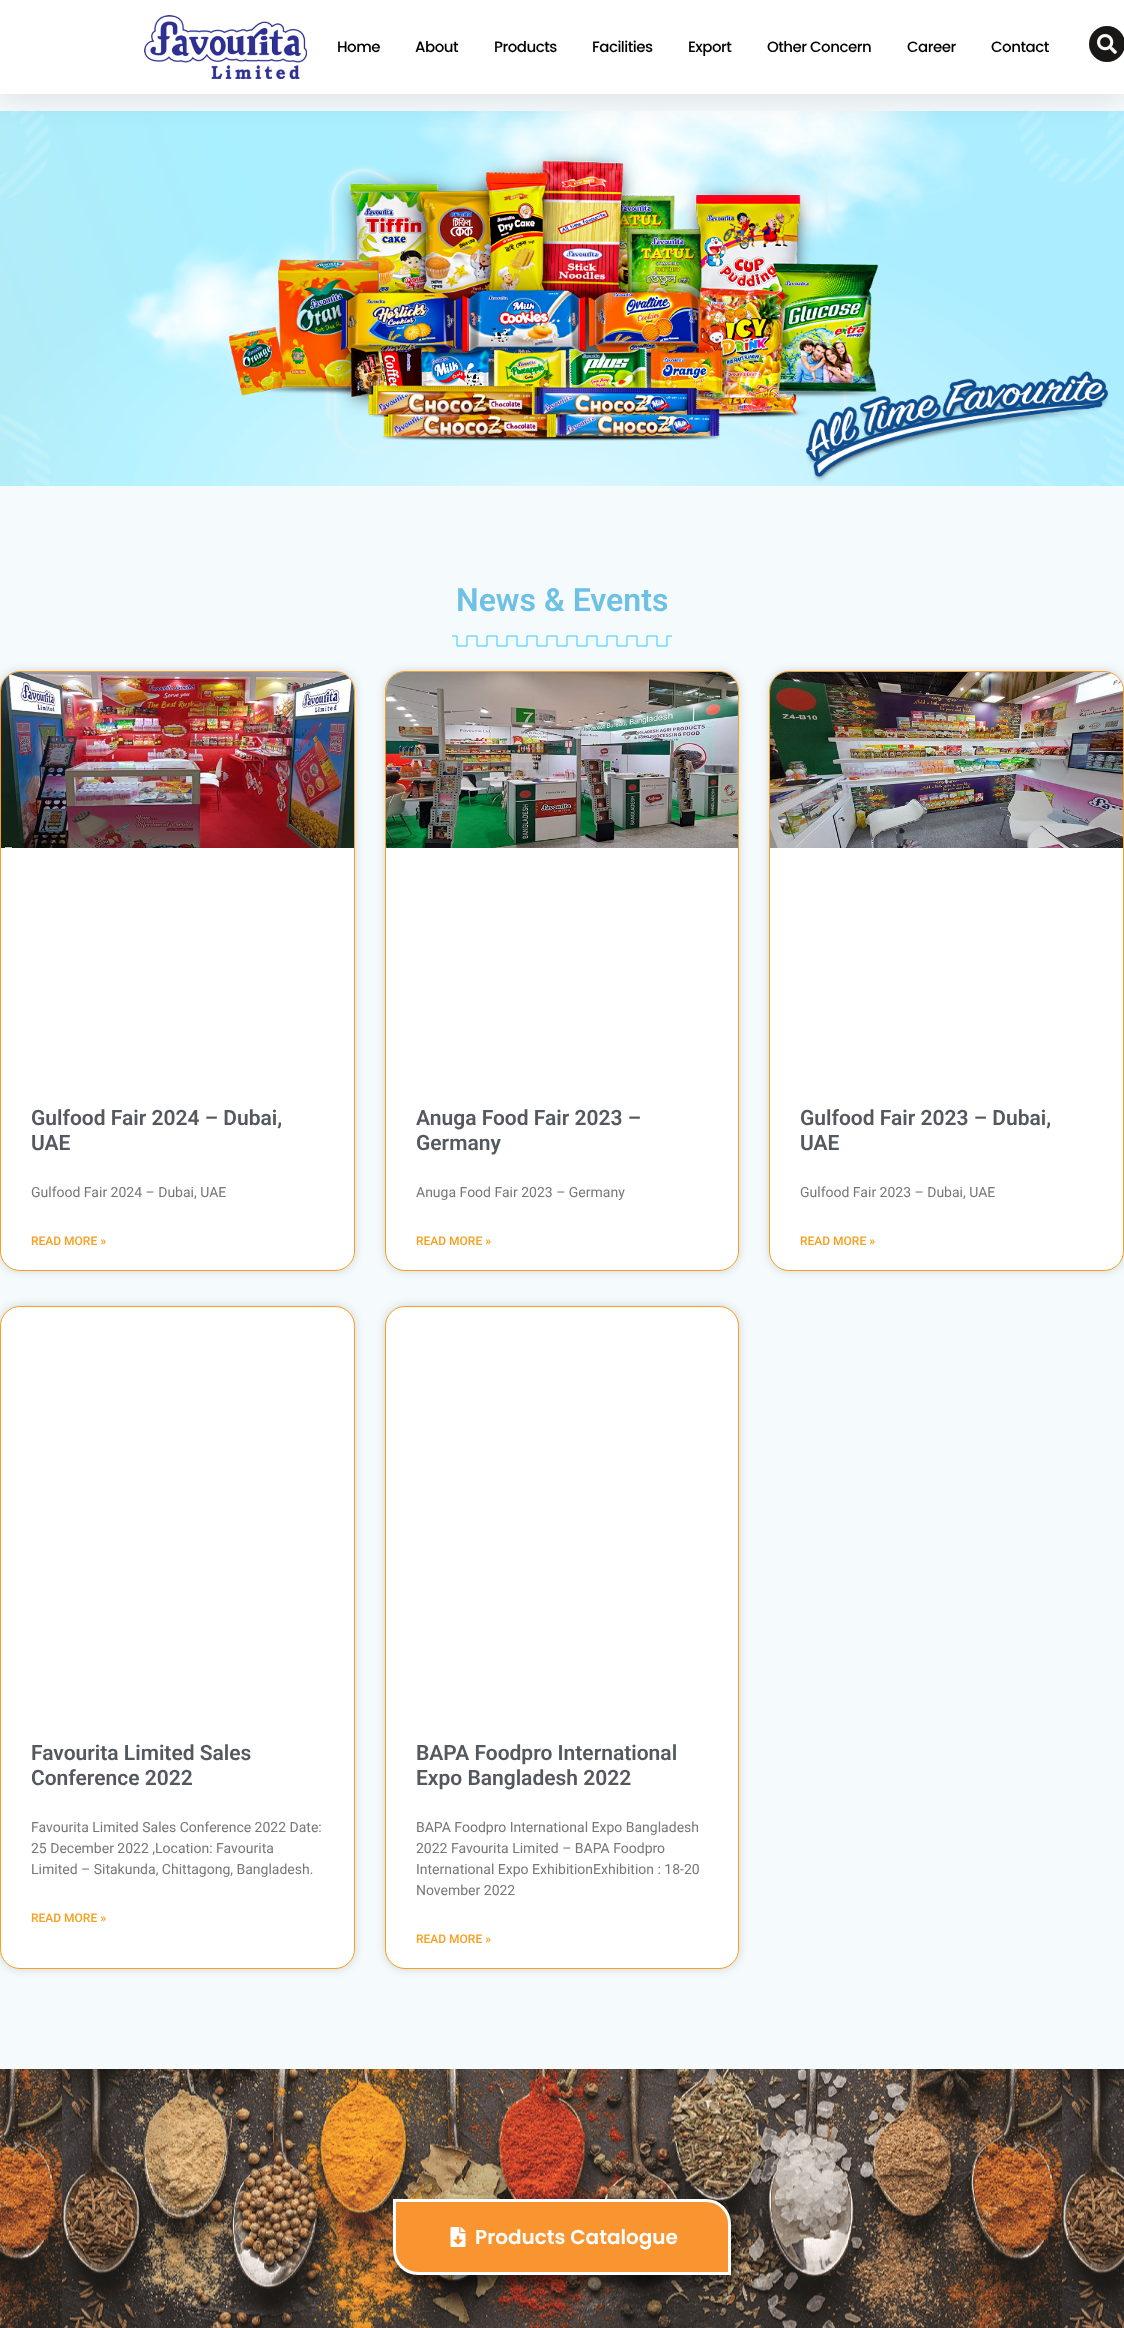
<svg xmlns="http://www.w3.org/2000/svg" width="1124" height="2328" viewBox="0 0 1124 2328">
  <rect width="100%" height="100%" fill="rgb(245,250,253)"/>
  <image x="0" y="111" width="1124" height="375" href="pic3.png"/>
  <rect x="0" y="5" width="1124" height="94" fill="rgba(0,0,0,0.1)" filter="blur(15px)"/>
  <rect x="0" y="0" width="1124" height="94" fill="rgb(255,255,255)"/>
  <image x="144" y="15" width="163" height="64" href="pic1.png"/>
  <g font-family="Poppins" font-size="15" font-weight="500" letter-spacing="-0.5" fill="rgb(0,0,0)">
    <text x="337" y="52">Home</text>
    <text x="415" y="52">About</text>
    <text x="494" y="52">Products</text>
    <text x="592" y="52">Facilities</text>
    <text x="688" y="52">Export</text>
    <text x="767" y="52">Other Concern</text>
    <text x="907" y="52">Career</text>
    <text x="991" y="52">Contact</text>
  </g>
  <circle cx="1107" cy="44" r="18" fill="rgb(26,23,23)"/>
  <image x="1097" y="34" width="20" height="20" href="pic2.png"/>
  <text x="456" y="611" font-family="Roboto" font-size="32" font-weight="600" fill="rgb(110,193,228)">News &amp; Events</text>
  <image x="452" y="635" width="220" height="12" href="pic4.png"/>
  <rect x="0" y="671" width="355" height="600" rx="20" fill="rgba(0,0,0,0.15)" filter="blur(5px)"/>
  <rect x="0.5" y="671.5" width="354" height="599" rx="19.5" fill="rgb(255,255,255)" stroke="rgb(247,159,31)"/>
  <image x="1" y="672" width="353" height="176" href="pic5.png"/>
  <g font-family="Roboto" font-size="21" font-weight="600" fill="rgb(84,89,95)">
    <text>
      <tspan x="31" y="1125">Gulfood Fair 2024 – Dubai,</tspan>
      <tspan x="31" y="1150">UAE</tspan>
    </text>
  </g>
  <text x="31" y="1197" font-family="Roboto" font-size="14" fill="rgb(119,119,119)">Gulfood Fair 2024 – Dubai, UAE</text>
  <text x="31" y="1245" font-family="Roboto" font-size="12" font-weight="500" fill="rgb(247,159,31)">READ MORE »</text>
  <rect x="385" y="671" width="354" height="600" rx="20" fill="rgba(0,0,0,0.15)" filter="blur(5px)"/>
  <rect x="385.5" y="671.5" width="353" height="599" rx="19.5" fill="rgb(255,255,255)" stroke="rgb(247,159,31)"/>
  <image x="386" y="672" width="352" height="176" href="pic6.png"/>
  <g font-family="Roboto" font-size="21" font-weight="600" fill="rgb(84,89,95)">
    <text>
      <tspan x="416" y="1125">Anuga Food Fair 2023 –</tspan>
      <tspan x="416" y="1150">Germany</tspan>
    </text>
  </g>
  <text x="416" y="1197" font-family="Roboto" font-size="14" fill="rgb(119,119,119)">Anuga Food Fair 2023 – Germany</text>
  <text x="416" y="1245" font-family="Roboto" font-size="12" font-weight="500" fill="rgb(247,159,31)">READ MORE »</text>
  <rect x="769" y="671" width="355" height="600" rx="20" fill="rgba(0,0,0,0.15)" filter="blur(5px)"/>
  <rect x="769.5" y="671.5" width="354" height="599" rx="19.5" fill="rgb(255,255,255)" stroke="rgb(247,159,31)"/>
  <image x="770" y="672" width="353" height="176" href="pic7.png"/>
  <g font-family="Roboto" font-size="21" font-weight="600" fill="rgb(84,89,95)">
    <text>
      <tspan x="800" y="1125">Gulfood Fair 2023 – Dubai,</tspan>
      <tspan x="800" y="1150">UAE</tspan>
    </text>
  </g>
  <text x="800" y="1197" font-family="Roboto" font-size="14" fill="rgb(119,119,119)">Gulfood Fair 2023 – Dubai, UAE</text>
  <text x="800" y="1245" font-family="Roboto" font-size="12" font-weight="500" fill="rgb(247,159,31)">READ MORE »</text>
  <rect x="0" y="1306" width="355" height="663" rx="20" fill="rgba(0,0,0,0.15)" filter="blur(5px)"/>
  <rect x="0.5" y="1306.5" width="354" height="662" rx="19.5" fill="rgb(255,255,255)" stroke="rgb(247,159,31)"/>
  <g font-family="Roboto" font-size="21" font-weight="600" fill="rgb(84,89,95)">
    <text>
      <tspan x="31" y="1760">Favourita Limited Sales</tspan>
      <tspan x="31" y="1785">Conference 2022</tspan>
    </text>
  </g>
  <g font-family="Roboto" font-size="14" fill="rgb(119,119,119)">
    <text>
      <tspan x="31" y="1832">Favourita Limited Sales Conference 2022 Date:</tspan>
      <tspan x="31" y="1853">25 December 2022 ,Location: Favourita</tspan>
      <tspan x="31" y="1874">Limited – Sitakunda, Chittagong, Bangladesh.</tspan>
    </text>
  </g>
  <text x="31" y="1922" font-family="Roboto" font-size="12" font-weight="500" fill="rgb(247,159,31)">READ MORE »</text>
  <rect x="385" y="1306" width="354" height="663" rx="20" fill="rgba(0,0,0,0.15)" filter="blur(5px)"/>
  <rect x="385.5" y="1306.5" width="353" height="662" rx="19.5" fill="rgb(255,255,255)" stroke="rgb(247,159,31)"/>
  <g font-family="Roboto" font-size="21" font-weight="600" fill="rgb(84,89,95)">
    <text>
      <tspan x="416" y="1760">BAPA Foodpro International</tspan>
      <tspan x="416" y="1785">Expo Bangladesh 2022</tspan>
    </text>
  </g>
  <g font-family="Roboto" font-size="14" fill="rgb(119,119,119)">
    <text>
      <tspan x="416" y="1832">BAPA Foodpro International Expo Bangladesh</tspan>
      <tspan x="416" y="1853">2022 Favourita Limited – BAPA Foodpro</tspan>
      <tspan x="416" y="1874">International Expo ExhibitionExhibition : 18-20</tspan>
      <tspan x="416" y="1895">November 2022</tspan>
    </text>
  </g>
  <text x="416" y="1943" font-family="Roboto" font-size="12" font-weight="500" fill="rgb(247,159,31)">READ MORE »</text>
  <image x="0" y="2069" width="1124" height="259" href="pic8.png"/>
  <rect x="400" y="2209" width="338" height="76" rx="25" fill="rgba(0,0,0,0.5)" filter="blur(5px)"/>
  <path d="M394.5 2200.5H706C719 2200.5 729.5 2211 729.5 2224V2273.5H418C405 2273.5 394.5 2263 394.5 2250Z" fill="rgb(249,149,49)" stroke="rgb(255,255,255)" stroke-width="3"/>
  <image x="450" y="2227" width="16" height="20" href="pic9.png"/>
  <text x="475" y="2244" font-family="Poppins" font-size="20" font-weight="600" fill="rgb(255,255,255)">Products Catalogue</text>
</svg>
